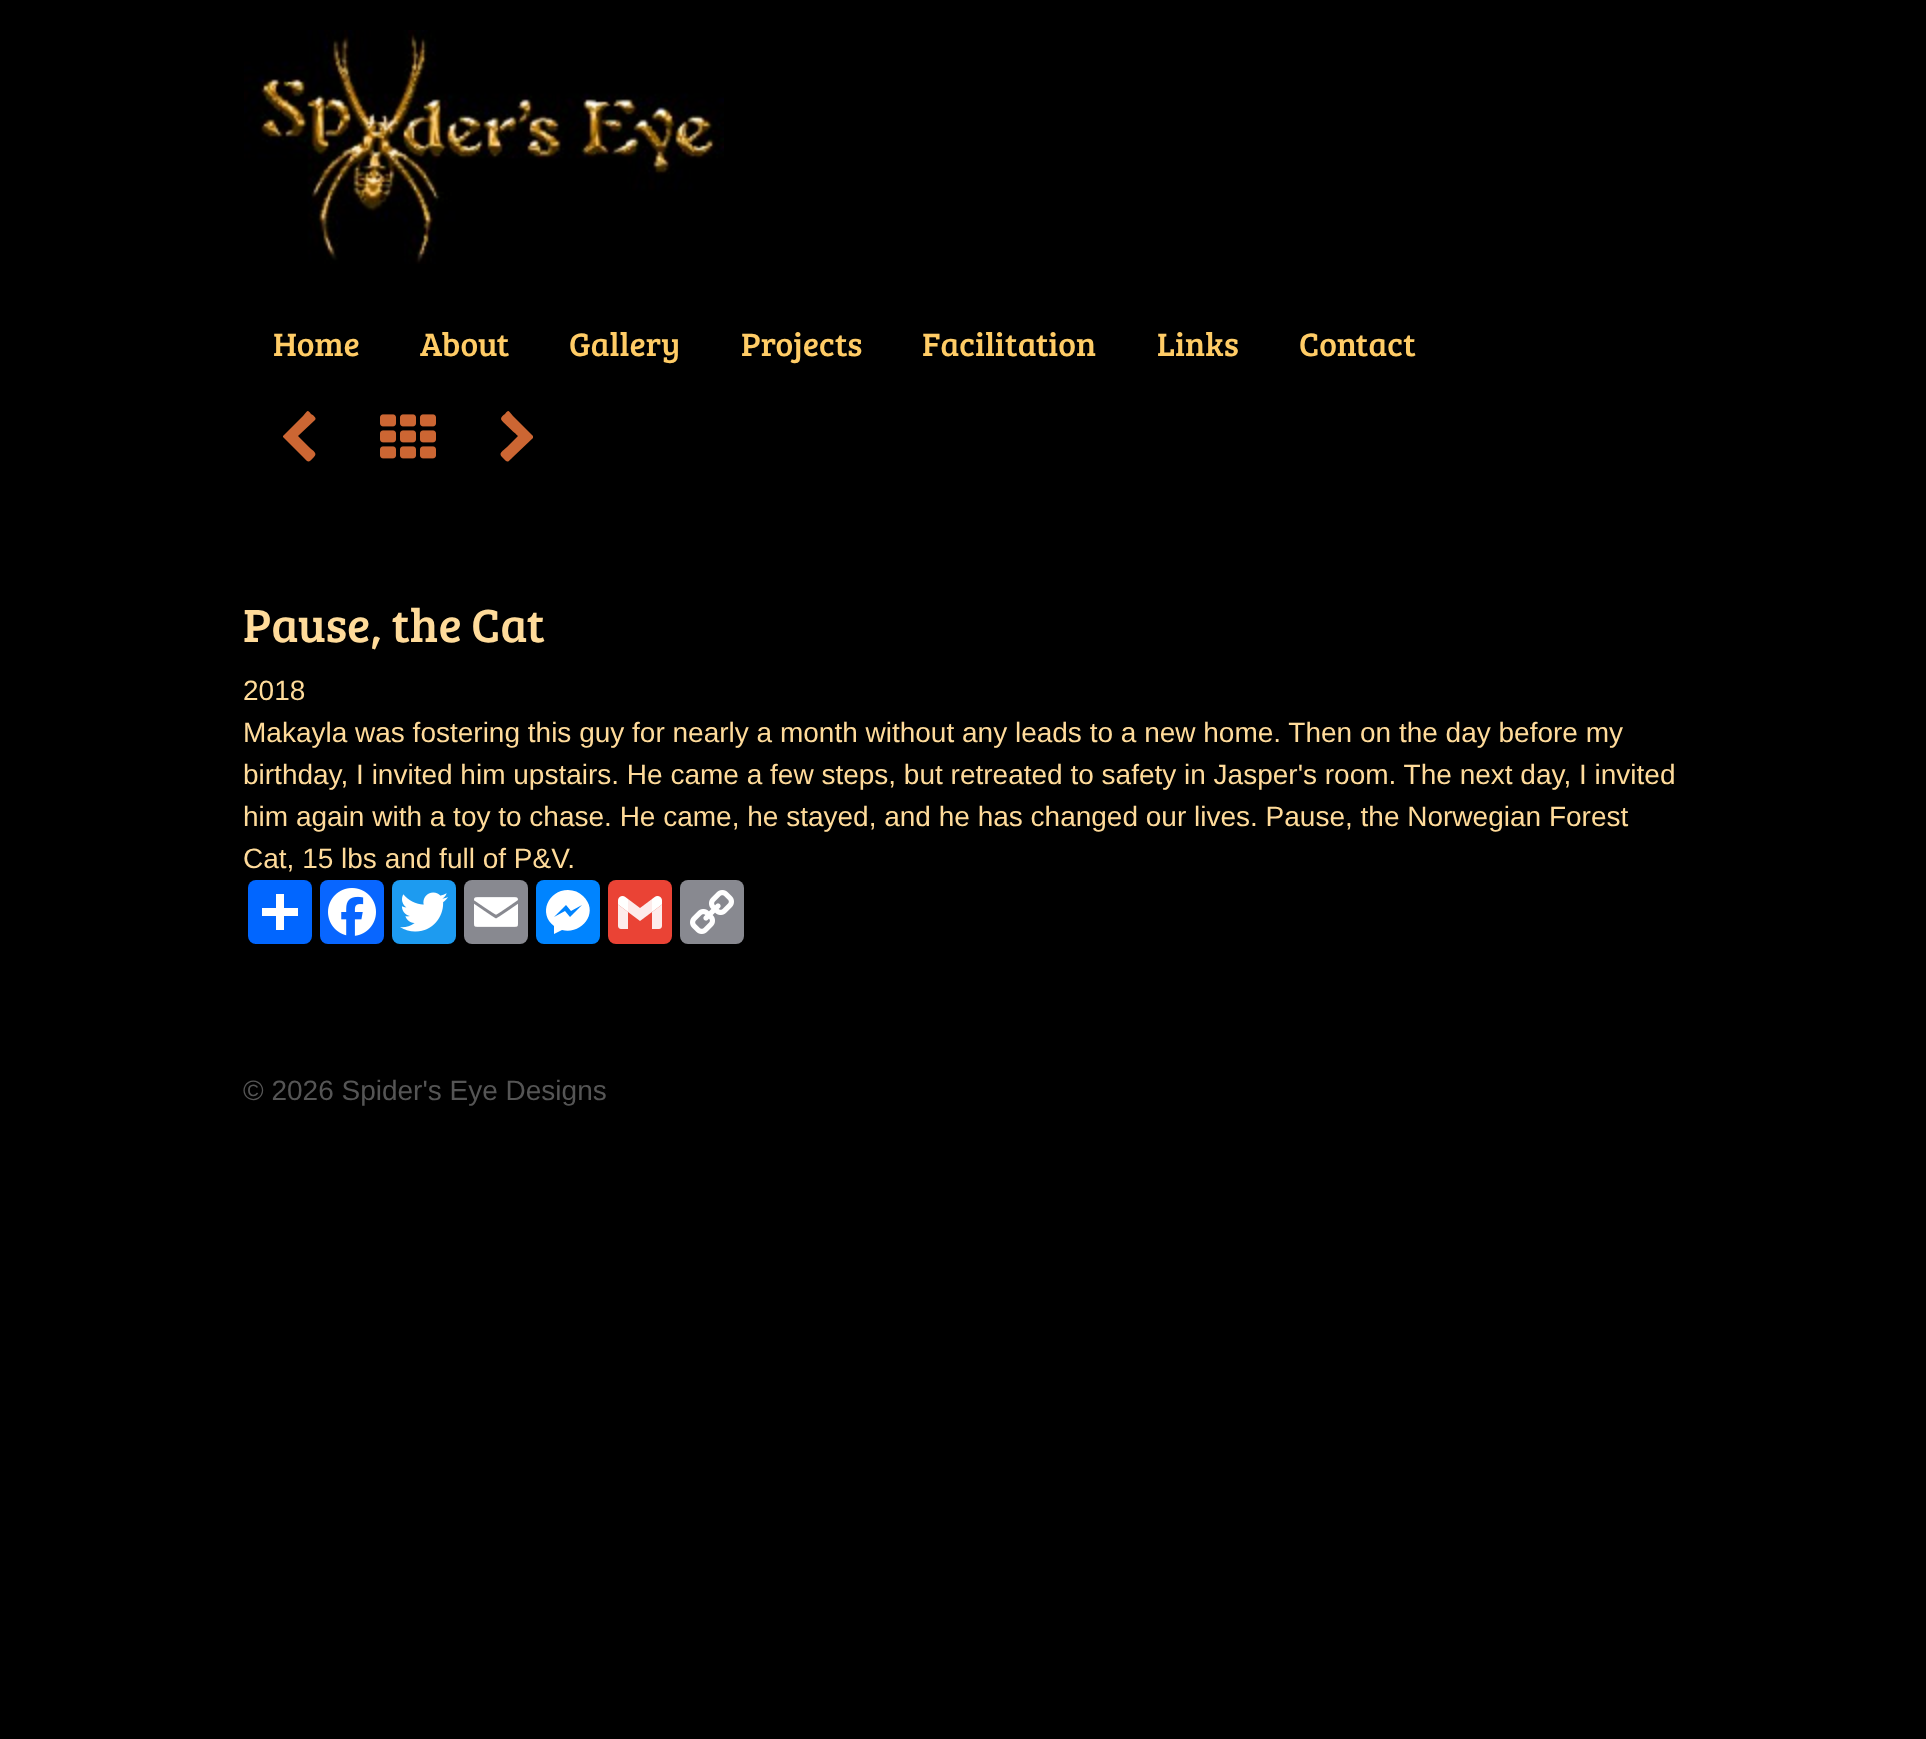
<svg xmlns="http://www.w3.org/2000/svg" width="1926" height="1739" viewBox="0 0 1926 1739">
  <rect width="100%" height="100%" fill="rgb(0,0,0)"/>
  <image x="244" y="30" width="480" height="234" href="pic1.png"/>
  <g font-family="Bree Serif" font-size="33.5" fill="rgb(255,204,102)">
    <text x="273" y="356">Home</text>
    <text x="420" y="356">About</text>
    <text x="569" y="356">Gallery</text>
    <text x="741" y="356">Projects</text>
    <text x="922" y="356">Facilitation</text>
    <text x="1157" y="356">Links</text>
    <text x="1299" y="356">Contact</text>
  </g>
  <path d="M315 420L298 436L309 447C313 451 318 453 314 457C308 463 309 463 303 457L283 437V436L303 416C308 411 307 409 311 414C313 415 317 418 315 420Z" fill="rgb(204,102,51)"/>
  <image x="380" y="414" width="56" height="45" href="pic2.png"/>
  <path d="M533 438L513 457C507 463 508 463 502 457C498 453 503 451 507 447L518 436C516 434 501 421 501 419C501 417 503 415 505 414C509 409 508 411 513 416L533 436Z" fill="rgb(204,102,51)"/>
  <text x="243" y="642" font-family="Bree Serif" font-size="48" fill="rgb(255,219,154)">Pause, the Cat</text>
  <g font-family="Liberation Sans" font-size="28" fill="rgb(255,219,154)">
    <text>
      <tspan x="243" y="700">2018</tspan>
      <tspan x="243" y="742">Makayla was fostering this guy for nearly a month without any leads to a new home. Then on the day before my</tspan>
      <tspan x="243" y="784">birthday, I invited him upstairs. He came a few steps, but retreated to safety in Jasper's room. The next day, I invited</tspan>
      <tspan x="243" y="826">him again with a toy to chase. He came, he stayed, and he has changed our lives. Pause, the Norwegian Forest</tspan>
      <tspan x="243" y="868">Cat, 15 lbs and full of P&amp;V.</tspan>
    </text>
  </g>
  <rect x="248" y="880" width="64" height="64" rx="8" fill="rgb(1,102,255)"/>
  <rect x="276" y="894" width="8" height="36" fill="rgb(255,255,255)"/>
  <rect x="262" y="908" width="36" height="8" fill="rgb(255,255,255)"/>
  <rect x="320" y="880" width="64" height="64" rx="8" fill="rgb(8,102,255)"/>
  <image x="328" y="888" width="48" height="48" href="pic3.png"/>
  <rect x="392" y="880" width="64" height="64" rx="8" fill="rgb(29,155,240)"/>
  <image x="400" y="892" width="48" height="40" href="pic4.png"/>
  <rect x="464" y="880" width="64" height="64" rx="8" fill="rgb(136,137,144)"/>
  <image x="474" y="897" width="44" height="30" href="pic5.png"/>
  <rect x="536" y="880" width="64" height="64" rx="8" fill="rgb(0,132,255)"/>
  <path d="M568 890C548 890 538 914 554 926V934L562 930C582 935 600 912 583 896C579 892 574 890 568 890M570 917L565 911L554 917L566 905L571 911L582 905Z" fill="rgb(255,255,255)"/>
  <rect x="608" y="880" width="64" height="64" rx="8" fill="rgb(234,67,53)"/>
  <image x="618" y="896" width="44" height="33" href="pic6.png"/>
  <rect x="680" y="880" width="64" height="64" rx="8" fill="rgb(136,137,144)"/>
  <image x="690" y="890" width="44" height="44" href="pic7.png"/>
  <text x="243" y="1100" font-family="Liberation Sans" font-size="28" fill="rgb(85,85,85)">© 2026 Spider's Eye Designs</text>
</svg>
